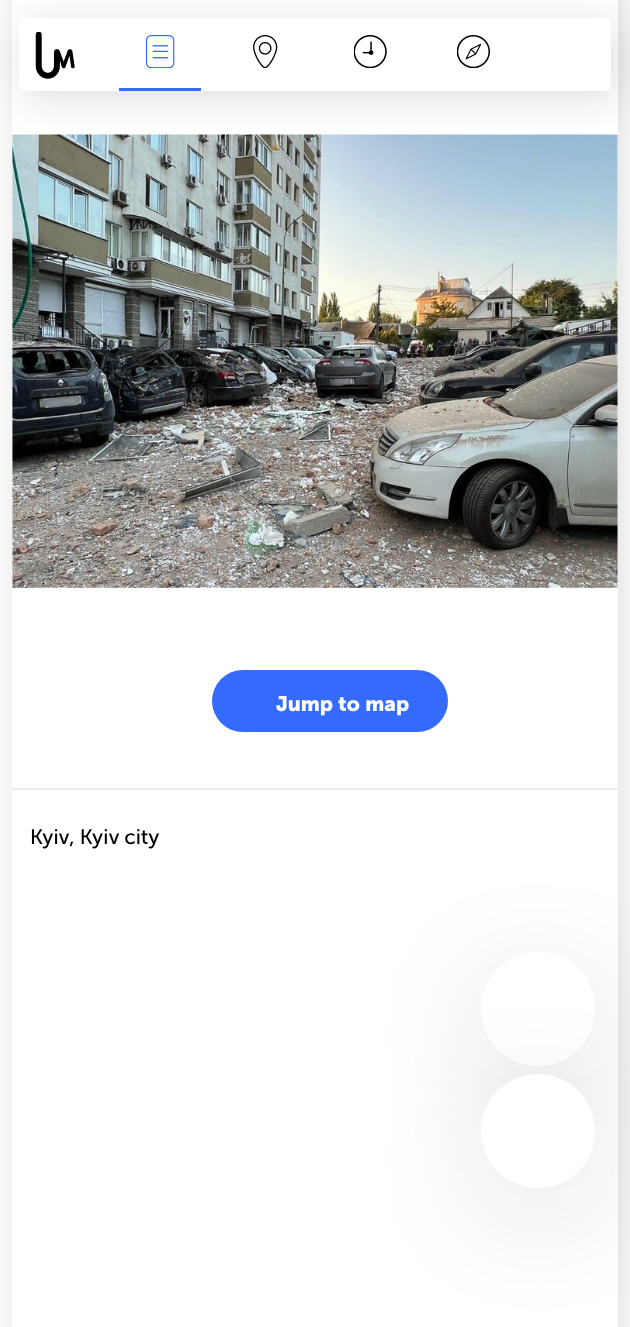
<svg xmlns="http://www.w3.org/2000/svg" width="630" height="1327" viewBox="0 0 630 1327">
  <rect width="100%" height="100%" fill="rgb(255,255,255)"/>
  <rect x="18" y="-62" width="605" height="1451" rx="5" fill="rgba(16,15,15,0.14)" filter="blur(19px)"/>
  <rect x="12" y="0" width="606" height="1327" fill="rgb(255,255,255)"/>
  <image x="12" y="134" width="606" height="454" href="pic6.png"/>
  <rect x="25" y="25" width="591" height="73" rx="5" fill="rgba(16,15,15,0.14)" filter="blur(19px)"/>
  <rect x="19" y="18" width="592" height="73" rx="5" fill="rgb(255,255,255)"/>
  <image x="35" y="32" width="40" height="47" href="pic1.png"/>
  <rect x="119" y="88" width="82" height="3" fill="rgb(52,106,254)"/>
  <image x="145" y="35" width="30" height="33" href="pic2.png"/>
  <image x="253" y="35" width="25" height="33" href="pic3.png"/>
  <image x="354" y="35" width="33" height="33" href="pic4.png"/>
  <image x="457" y="35" width="33" height="33" href="pic5.png"/>
  <rect x="12" y="788" width="606" height="2" fill="rgb(236,236,236)"/>
  <rect x="212" y="670" width="236" height="62" rx="31" fill="rgb(52,106,254)"/>
  <text x="276" y="711" font-family="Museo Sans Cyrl" font-size="21" font-weight="bold" fill="rgb(255,255,255)">Jump to map</text>
  <text x="30" y="844" font-family="Museo Sans Cyrl" font-size="21" fill="rgb(0,0,0)">Kyiv, Kyiv city</text>
  <rect x="485" y="982" width="107" height="107" rx="53.5" fill="rgba(16,15,15,0.14)" filter="blur(57px)"/>
  <circle cx="538" cy="1009" r="57" fill="rgb(255,255,255)"/>
  <rect x="485" y="1104" width="107" height="107" rx="53.5" fill="rgba(16,15,15,0.14)" filter="blur(57px)"/>
  <path d="M538 1188C507 1188 481 1163 481 1131C481 1100 507 1074 538 1074C570 1074 595 1100 595 1131C595 1163 570 1188 538 1188Z" fill="rgb(255,255,255)"/>
</svg>
